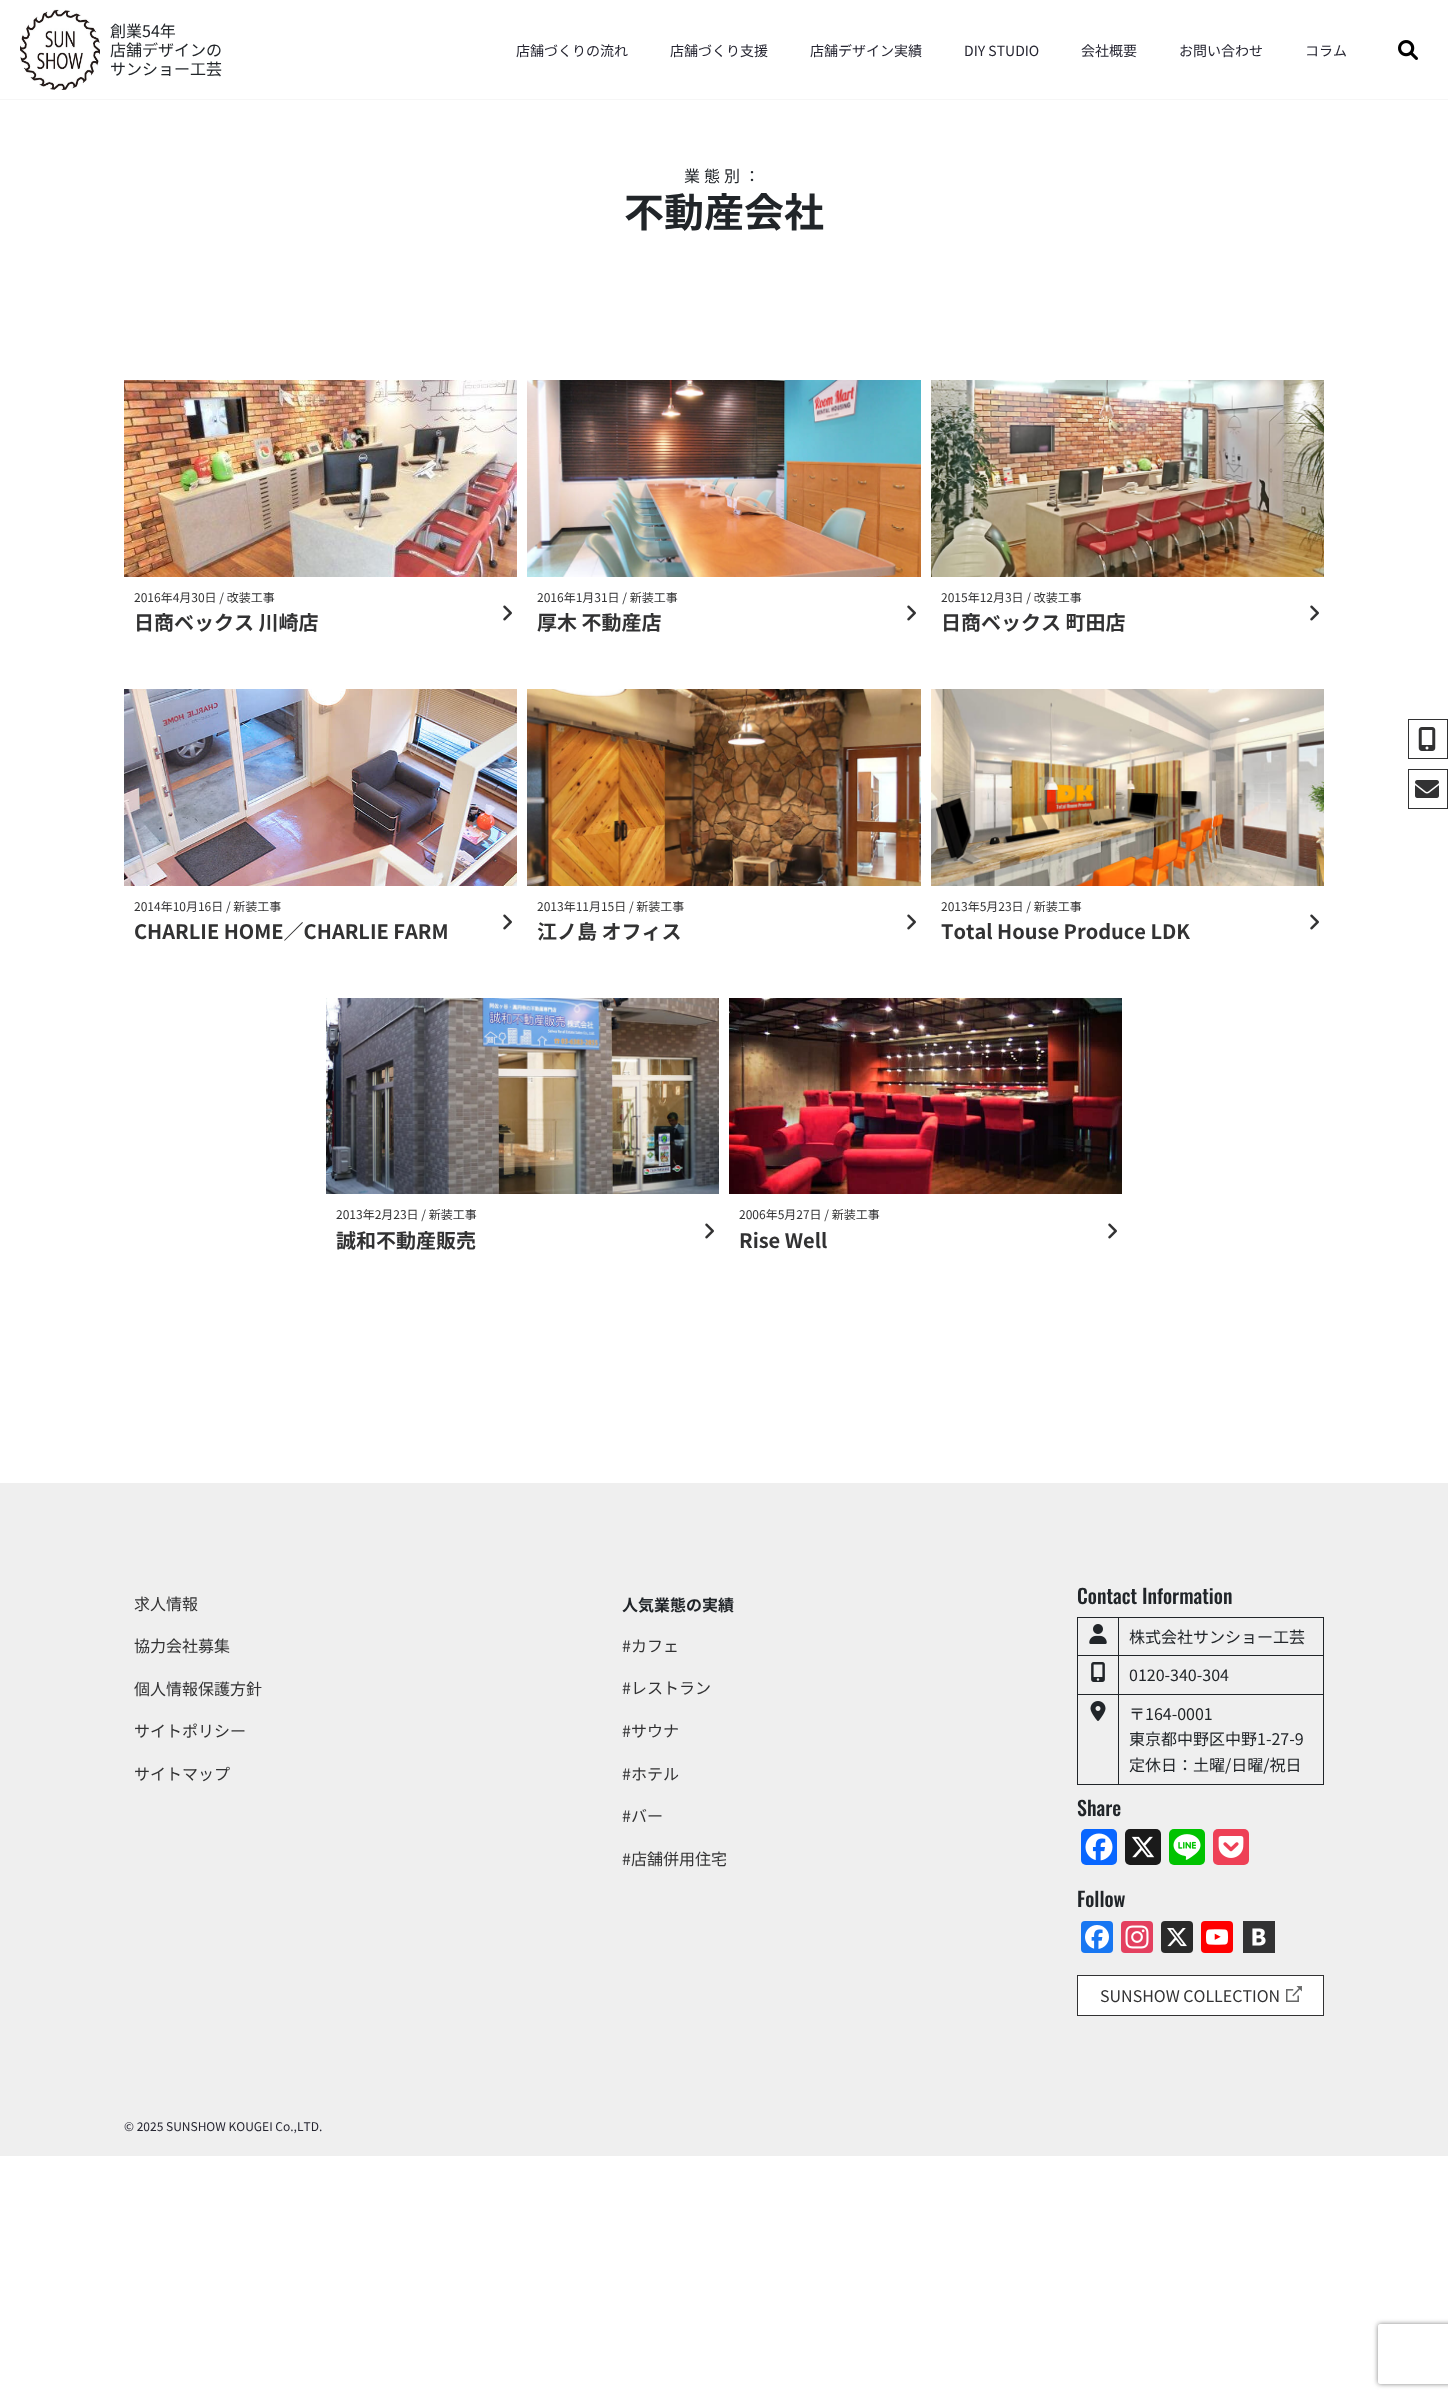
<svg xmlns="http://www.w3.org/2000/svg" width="1448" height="2398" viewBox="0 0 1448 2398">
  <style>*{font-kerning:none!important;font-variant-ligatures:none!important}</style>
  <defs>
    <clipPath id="clip1"><path d="M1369 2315H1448V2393H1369ZM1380 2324H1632C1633 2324 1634 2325 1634 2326V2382C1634 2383 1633 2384 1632 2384H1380C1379 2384 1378 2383 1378 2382V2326C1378 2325 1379 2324 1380 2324Z" clip-rule="evenodd"/></clipPath>
  </defs>
  <rect width="100%" height="100%" fill="rgb(255,255,255)"/>
  <rect x="0" y="99" width="1448" height="1" fill="rgb(246,246,246)"/>
  <image x="20" y="9" width="80" height="81" href="pic1.png"/>
  <g font-family="Noto Sans JP" font-size="16" fill="rgb(33,37,41)">
    <text>
      <tspan x="110" y="37">創業54年</tspan>
      <tspan x="110" y="56">店舗デザインの</tspan>
      <tspan x="110" y="75">サンショー工芸</tspan>
    </text>
  </g>
  <g font-family="Noto Sans JP" font-size="14" fill="rgb(37,37,49)">
    <text x="516" y="56">店舗づくりの流れ</text>
    <text x="670" y="56">店舗づくり支援</text>
    <text x="810" y="56">店舗デザイン実績</text>
    <text x="964" y="56">DIY STUDIO</text>
    <text x="1081" y="56">会社概要</text>
    <text x="1179" y="56">お問い合わせ</text>
    <text x="1305" y="56">コラム</text>
  </g>
  <rect x="1408.5" y="719.5" width="39" height="39" fill="none" stroke="rgb(50,50,51)"/>
  <image x="1418" y="727" width="18" height="24" href="pic2.png"/>
  <rect x="1408.5" y="769.5" width="39" height="39" fill="none" stroke="rgb(50,50,51)"/>
  <image x="1415" y="780" width="24" height="18" href="pic3.png"/>
  <image x="1398" y="40" width="20" height="20" href="pic4.png"/>
  <text x="684" y="182" font-family="Noto Sans JP" font-size="16" letter-spacing="4" fill="rgb(33,37,41)">業態別：</text>
  <text x="624" y="227" font-family="Noto Sans JP" font-size="40" font-weight="bold" fill="rgb(33,37,41)">不動産会社</text>
  <image x="124" y="380" width="393" height="197" href="pic5.png"/>
  <text x="134" y="602" font-family="Noto Sans JP" font-size="12" fill="rgb(50,50,51)">2016年4月30日 / 改装工事</text>
  <text x="134" y="630" font-family="Noto Sans JP" font-size="20" font-weight="bold" fill="rgb(50,50,51)">日商ベックス 川崎店</text>
  <image x="503" y="605" width="9" height="16" href="pic6.png"/>
  <image x="527" y="380" width="394" height="197" href="pic7.png"/>
  <text x="537" y="602" font-family="Noto Sans JP" font-size="12" fill="rgb(50,50,51)">2016年1月31日 / 新装工事</text>
  <text x="537" y="630" font-family="Noto Sans JP" font-size="20" font-weight="bold" fill="rgb(50,50,51)">厚木 不動産店</text>
  <image x="907" y="605" width="9" height="16" href="pic6.png"/>
  <image x="931" y="380" width="393" height="197" href="pic8.png"/>
  <text x="941" y="602" font-family="Noto Sans JP" font-size="12" fill="rgb(50,50,51)">2015年12月3日 / 改装工事</text>
  <text x="941" y="630" font-family="Noto Sans JP" font-size="20" font-weight="bold" fill="rgb(50,50,51)">日商ベックス 町田店</text>
  <image x="1310" y="605" width="9" height="16" href="pic6.png"/>
  <image x="124" y="689" width="393" height="197" href="pic9.png"/>
  <text x="134" y="911" font-family="Noto Sans JP" font-size="12" fill="rgb(50,50,51)">2014年10月16日 / 新装工事</text>
  <text x="134" y="939" font-family="Noto Sans JP" font-size="20" font-weight="bold" fill="rgb(50,50,51)">CHARLIE HOME／CHARLIE FARM</text>
  <image x="503" y="914" width="9" height="16" href="pic6.png"/>
  <image x="527" y="689" width="394" height="197" href="pic10.png"/>
  <text x="537" y="911" font-family="Noto Sans JP" font-size="12" fill="rgb(50,50,51)">2013年11月15日 / 新装工事</text>
  <text x="537" y="939" font-family="Noto Sans JP" font-size="20" font-weight="bold" fill="rgb(50,50,51)">江ノ島 オフィス</text>
  <image x="907" y="914" width="9" height="16" href="pic6.png"/>
  <image x="931" y="689" width="393" height="197" href="pic11.png"/>
  <text x="941" y="911" font-family="Noto Sans JP" font-size="12" fill="rgb(50,50,51)">2013年5月23日 / 新装工事</text>
  <text x="941" y="939" font-family="Noto Sans JP" font-size="20" font-weight="bold" fill="rgb(50,50,51)">Total House Produce LDK</text>
  <image x="1310" y="914" width="9" height="16" href="pic6.png"/>
  <image x="326" y="998" width="393" height="196" href="pic12.png"/>
  <text x="336" y="1219" font-family="Noto Sans JP" font-size="12" fill="rgb(50,50,51)">2013年2月23日 / 新装工事</text>
  <text x="336" y="1248" font-family="Noto Sans JP" font-size="20" font-weight="bold" fill="rgb(50,50,51)">誠和不動産販売</text>
  <image x="705" y="1223" width="9" height="16" href="pic6.png"/>
  <image x="729" y="998" width="393" height="196" href="pic13.png"/>
  <text x="739" y="1219" font-family="Noto Sans JP" font-size="12" fill="rgb(50,50,51)">2006年5月27日 / 新装工事</text>
  <text x="739" y="1248" font-family="Noto Sans JP" font-size="20" font-weight="bold" fill="rgb(50,50,51)">Rise Well</text>
  <image x="1108" y="1223" width="9" height="16" href="pic6.png"/>
  <rect x="0" y="1483" width="1448" height="673" fill="rgb(239,239,239)"/>
  <g font-family="Noto Sans JP" font-size="16" fill="rgb(50,50,51)">
    <text x="134" y="1610">求人情報</text>
    <text x="134" y="1652">協力会社募集</text>
    <text x="134" y="1695">個人情報保護方針</text>
    <text x="134" y="1737">サイトポリシー</text>
    <text x="134" y="1780">サイトマップ</text>
  </g>
  <text x="622" y="1611" font-family="Noto Sans JP" font-size="16" font-weight="bold" fill="rgb(33,37,41)">人気業態の実績</text>
  <g font-family="Noto Sans JP" font-size="16" fill="rgb(50,50,51)">
    <text x="622" y="1652">#カフェ</text>
    <text x="622" y="1694">#レストラン</text>
    <text x="622" y="1737">#サウナ</text>
    <text x="622" y="1780">#ホテル</text>
    <text x="622" y="1822">#バー</text>
    <text x="622" y="1865">#店舗併用住宅</text>
  </g>
  <text x="1077" y="1604" font-family="Oswald" font-size="20" font-weight="500" fill="rgb(33,37,41)">Contact Information</text>
  <rect x="1118" y="1617" width="206" height="1" fill="rgb(33,37,41)"/>
  <rect x="1118" y="1655" width="206" height="1" fill="rgb(33,37,41)"/>
  <rect x="1118" y="1694" width="206" height="1" fill="rgb(33,37,41)"/>
  <rect x="1323" y="1694" width="1" height="91" fill="rgb(33,37,41)"/>
  <rect x="1118" y="1784" width="206" height="1" fill="rgb(33,37,41)"/>
  <rect x="1118" y="1694" width="1" height="91" fill="rgb(33,37,41)"/>
  <rect x="1077" y="1694" width="42" height="1" fill="rgb(33,37,41)"/>
  <rect x="1118" y="1655" width="1" height="40" fill="rgb(33,37,41)"/>
  <rect x="1077" y="1655" width="42" height="1" fill="rgb(33,37,41)"/>
  <rect x="1118" y="1617" width="1" height="39" fill="rgb(33,37,41)"/>
  <rect x="1077" y="1617" width="42" height="1" fill="rgb(33,37,41)"/>
  <rect x="1077" y="1784" width="42" height="1" fill="rgb(33,37,41)"/>
  <rect x="1077" y="1694" width="1" height="91" fill="rgb(33,37,41)"/>
  <rect x="1077" y="1655" width="1" height="40" fill="rgb(33,37,41)"/>
  <rect x="1077" y="1617" width="1" height="39" fill="rgb(33,37,41)"/>
  <image x="1089" y="1624" width="18" height="20" href="pic14.png"/>
  <rect x="1323" y="1655" width="1" height="40" fill="rgb(33,37,41)"/>
  <rect x="1323" y="1617" width="1" height="39" fill="rgb(33,37,41)"/>
  <text x="1129" y="1643" font-family="Noto Sans JP" font-size="16" fill="rgb(33,37,41)">株式会社サンショー工芸</text>
  <image x="1091" y="1662" width="14" height="20" href="pic15.png"/>
  <text x="1129" y="1681" font-family="Noto Sans JP" font-size="16" fill="rgb(33,37,41)">0120-340-304</text>
  <image x="1090" y="1701" width="16" height="20" href="pic16.png"/>
  <g font-family="Noto Sans JP" font-size="16" fill="rgb(33,37,41)">
    <text>
      <tspan x="1129" y="1720">〒164-0001</tspan>
      <tspan x="1129" y="1745">東京都中野区中野1-27-9</tspan>
      <tspan x="1129" y="1771">定休日：土曜/日曜/祝日</tspan>
    </text>
  </g>
  <text x="1077" y="1816" font-family="Oswald" font-size="20" font-weight="500" fill="rgb(33,37,41)">Share</text>
  <rect x="1081" y="1829" width="36" height="36" rx="5" fill="rgb(8,102,255)"/>
  <image x="1085" y="1833" width="28" height="28" href="pic17.png"/>
  <rect x="1125" y="1829" width="36" height="36" rx="5" fill="rgb(26,26,26)"/>
  <image x="1131" y="1836" width="24" height="22" href="pic18.png"/>
  <rect x="1169" y="1829" width="36" height="36" rx="5" fill="rgb(0,195,0)"/>
  <image x="1173" y="1834" width="28" height="26" href="pic19.png"/>
  <rect x="1213" y="1829" width="36" height="36" rx="5" fill="rgb(238,64,86)"/>
  <image x="1218" y="1836" width="26" height="22" href="pic20.png"/>
  <text x="1077" y="1907" font-family="Oswald" font-size="20" font-weight="500" fill="rgb(33,37,41)">Follow</text>
  <rect x="1081" y="1921" width="32" height="32" rx="4" fill="rgb(24,119,242)"/>
  <image x="1085" y="1925" width="24" height="24" href="pic21.png"/>
  <rect x="1121" y="1921" width="32" height="32" rx="4" fill="rgb(228,64,95)"/>
  <image x="1125" y="1925" width="24" height="24" href="pic22.png"/>
  <rect x="1161" y="1921" width="32" height="32" rx="4" fill="rgb(42,42,42)"/>
  <image x="1167" y="1928" width="20" height="19" href="pic23.png"/>
  <rect x="1201" y="1921" width="32" height="32" rx="4" fill="rgb(255,0,0)"/>
  <image x="1206" y="1929" width="22" height="16" href="pic24.png"/>
  <image x="1243" y="1921" width="32" height="32" href="pic25.png"/>
  <rect x="1077.5" y="1975.5" width="246" height="40" fill="rgb(255,255,255)" stroke="rgb(50,50,51)"/>
  <text x="1100" y="2002" font-family="Noto Sans JP" font-size="16" fill="rgb(50,50,51)">SUNSHOW COLLECTION</text>
  <image x="1286" y="1986" width="16" height="16" href="pic26.png"/>
  <text x="124" y="2131" font-family="Noto Sans JP" font-size="12" fill="rgb(37,37,49)">© 2025 SUNSHOW KOUGEI Co.,LTD.</text>
  <g clip-path="url(#clip1)">
    <rect x="1378" y="2324" width="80" height="60" rx="2" fill="rgb(128,128,128)" filter="blur(2.5px)"/>
  </g>
</svg>
